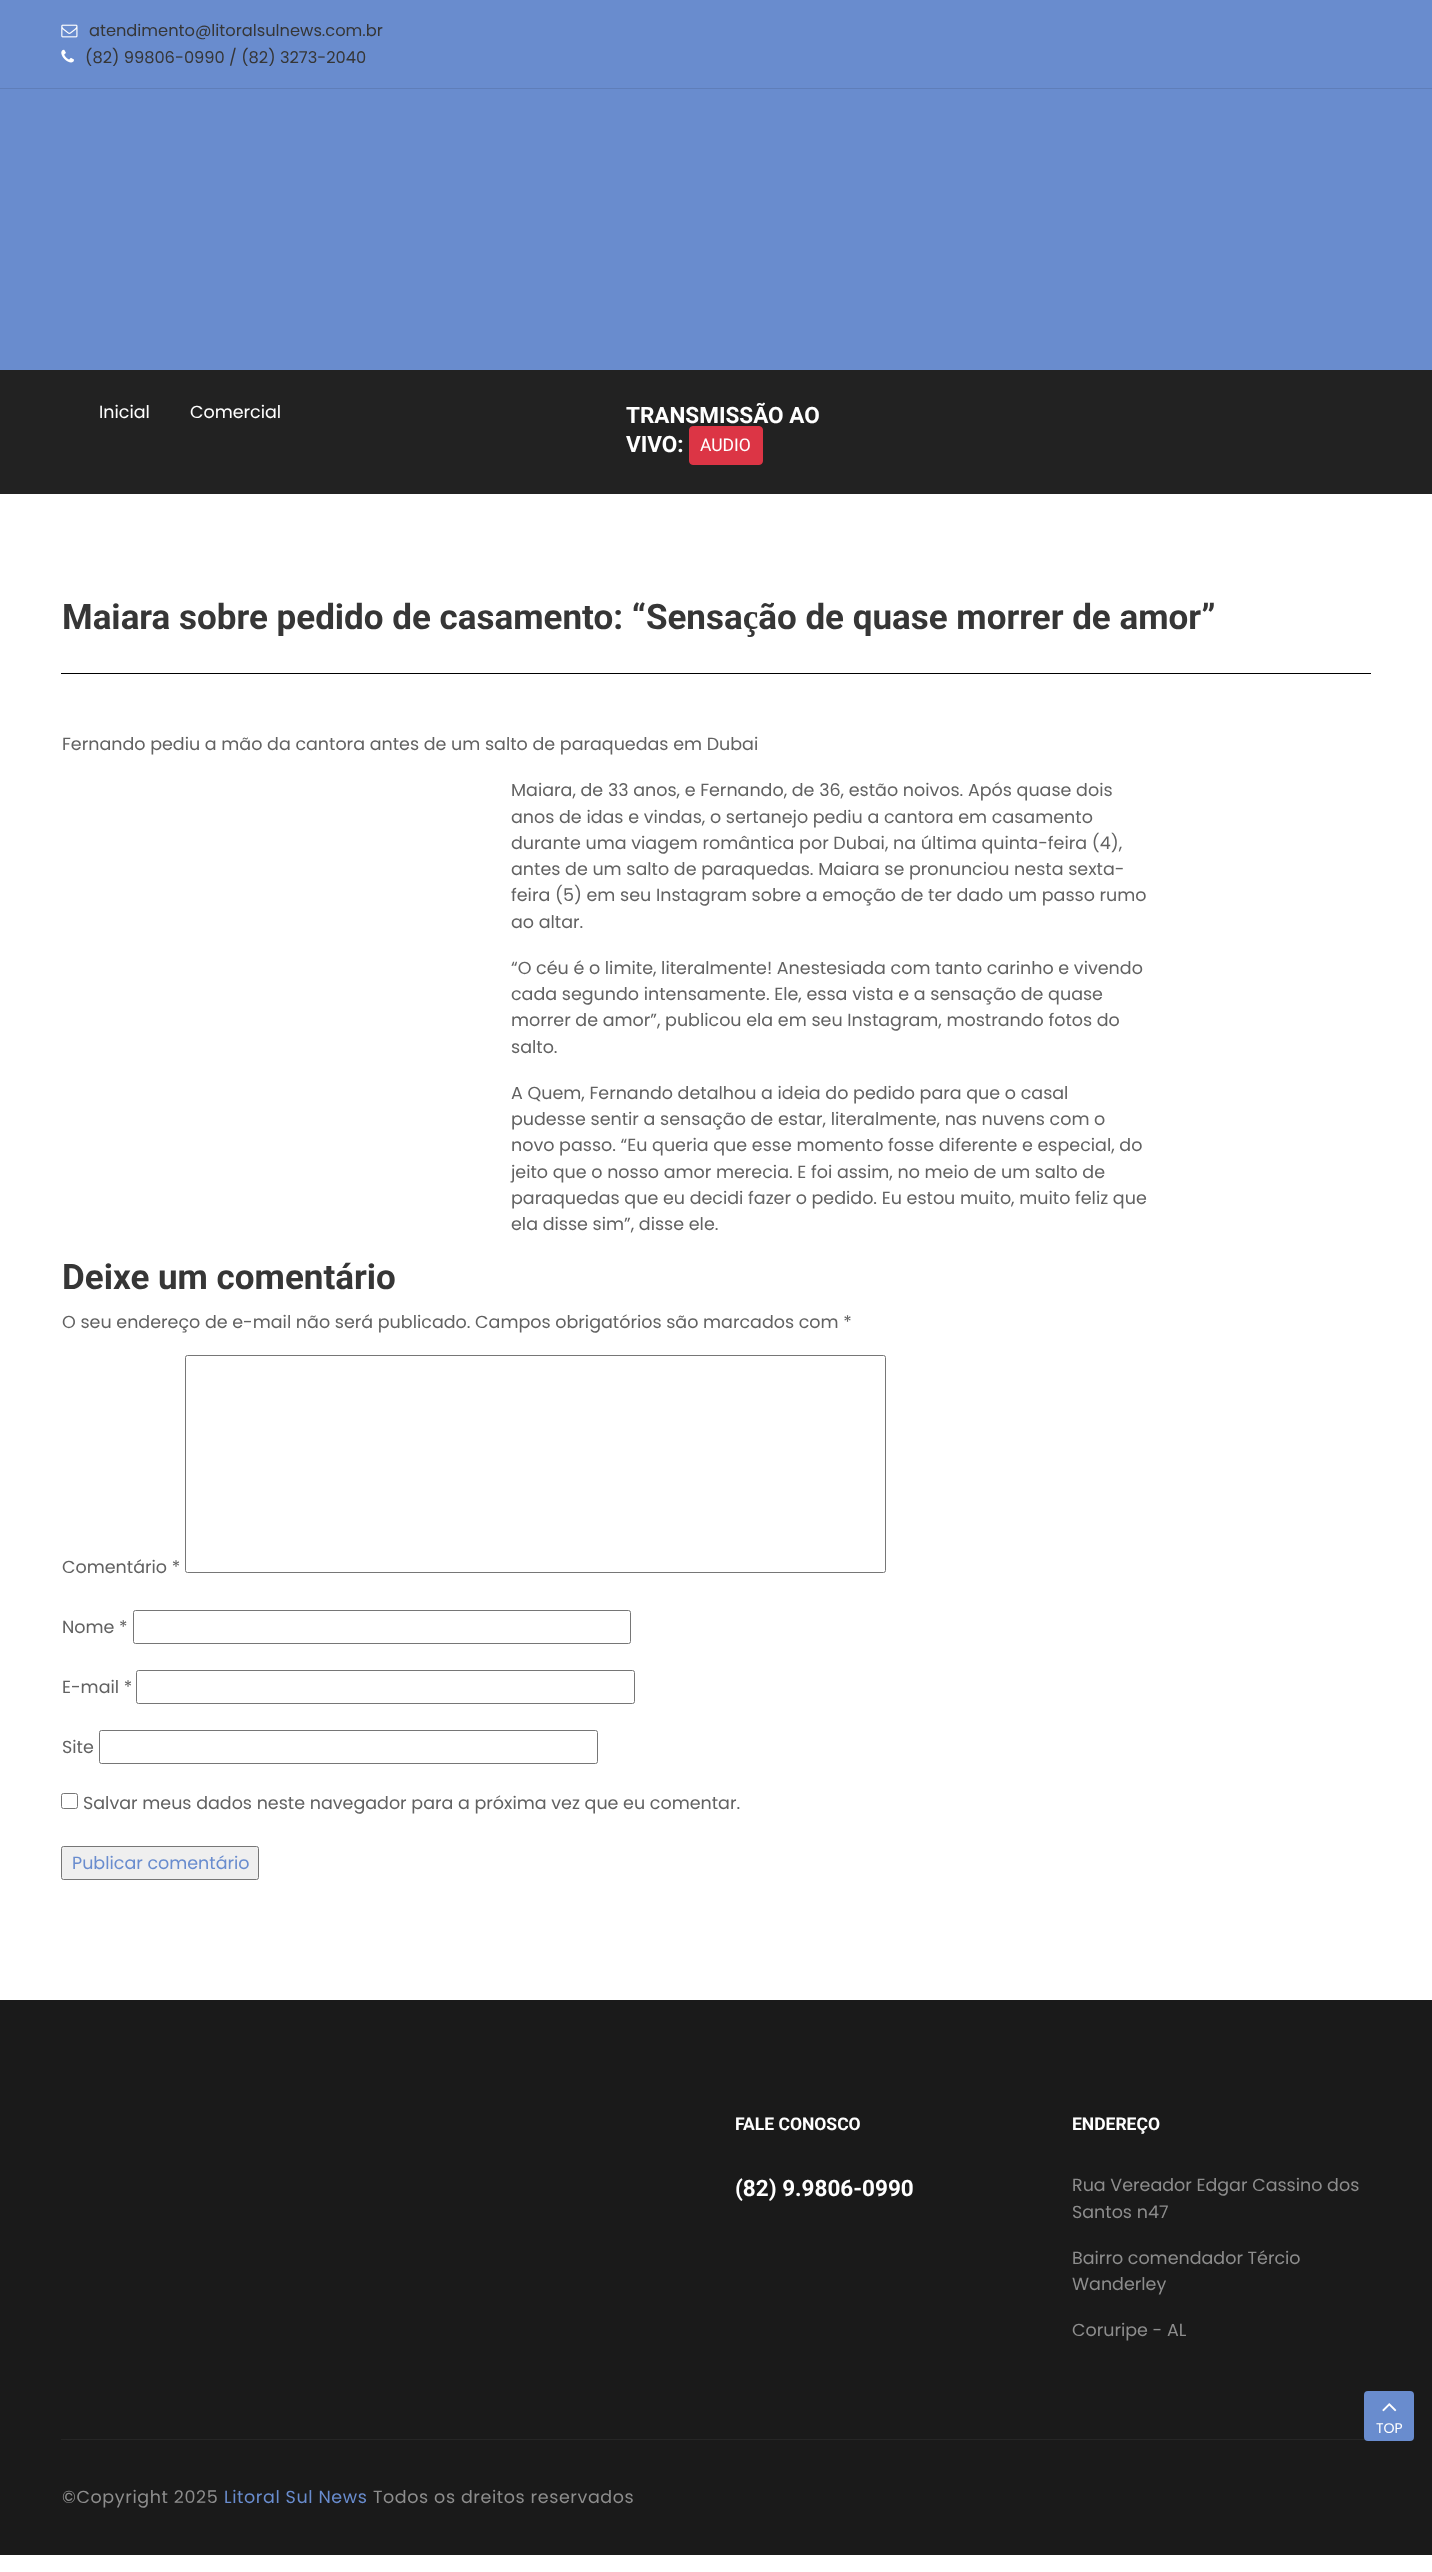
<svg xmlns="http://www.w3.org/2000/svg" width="1432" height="2572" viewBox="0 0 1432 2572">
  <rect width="100%" height="100%" fill="rgb(255,255,255)"/>
  <rect x="0" y="0" width="1432" height="370" fill="rgb(105,140,206)"/>
  <rect x="0" y="88" width="1432" height="1" fill="rgb(95,126,185)"/>
  <image x="61" y="24" width="17" height="14" href="pic1.png"/>
  <text x="89" y="36" font-family="Poppins" font-size="16.25" fill="rgb(54,54,54)">atendimento@litoralsulnews.com.br</text>
  <image x="61" y="49" width="13" height="14" href="pic2.png"/>
  <text x="85" y="63" font-family="Poppins" font-size="16.25" fill="rgb(54,54,54)">(82) 99806-0990 / (82) 3273-2040</text>
  <rect x="0" y="370" width="1432" height="124" fill="rgb(34,34,34)"/>
  <g font-family="Poppins" font-size="17.5" fill="rgb(255,255,255)">
    <text x="99" y="418">Inicial</text>
    <text x="190" y="418">Comercial</text>
  </g>
  <g font-family="Roboto" font-size="22.5" font-weight="bold" fill="rgb(255,255,255)">
    <text>
      <tspan x="626" y="423">TRANSMISSÃO AO</tspan>
      <tspan x="626" y="452">VIVO:</tspan>
    </text>
  </g>
  <rect x="689.5" y="426.5" width="73" height="38" rx="3.5" fill="rgb(220,53,69)" stroke="rgb(220,53,69)"/>
  <text x="700" y="451" font-family="Roboto" font-size="17.5" fill="rgb(255,255,255)">AUDIO</text>
  <rect x="61" y="673" width="1310" height="1" fill="rgb(0,0,0)"/>
  <text x="62" y="629" font-family="Roboto" font-size="35" font-weight="bold" fill="rgb(54,54,54)">Maiara sobre pedido de casamento: “Sensação de quase morrer de amor”</text>
  <g font-family="Poppins" font-size="17.5" fill="rgb(98,98,98)">
    <text x="62" y="750">Fernando pediu a mão da cantora antes de um salto de paraquedas em Dubai</text>
    <text>
      <tspan x="511" y="796">Maiara, de 33 anos, e Fernando, de 36, estão noivos. Após quase dois</tspan>
      <tspan x="511" y="823">anos de idas e vindas, o sertanejo pediu a cantora em casamento</tspan>
      <tspan x="511" y="849">durante uma viagem romântica por Dubai, na última quinta-feira (4),</tspan>
      <tspan x="511" y="875">antes de um salto de paraquedas. Maiara se pronunciou nesta sexta-</tspan>
      <tspan x="511" y="901">feira (5) em seu Instagram sobre a emoção de ter dado um passo rumo</tspan>
      <tspan x="511" y="928">ao altar.</tspan>
    </text>
    <text>
      <tspan x="511" y="974">“O céu é o limite, literalmente! Anestesiada com tanto carinho e vivendo</tspan>
      <tspan x="511" y="1000">cada segundo intensamente. Ele, essa vista e a sensação de quase</tspan>
      <tspan x="511" y="1026">morrer de amor”, publicou ela em seu Instagram, mostrando fotos do</tspan>
      <tspan x="511" y="1053">salto.</tspan>
    </text>
    <text>
      <tspan x="511" y="1099">A Quem, Fernando detalhou a ideia do pedido para que o casal</tspan>
      <tspan x="511" y="1125">pudesse sentir a sensação de estar, literalmente, nas nuvens com o</tspan>
      <tspan x="511" y="1151">novo passo. “Eu queria que esse momento fosse diferente e especial, do</tspan>
      <tspan x="511" y="1178">jeito que o nosso amor merecia. E foi assim, no meio de um salto de</tspan>
      <tspan x="511" y="1204">paraquedas que eu decidi fazer o pedido. Eu estou muito, muito feliz que</tspan>
      <tspan x="511" y="1230">ela disse sim”, disse ele.</tspan>
    </text>
  </g>
  <text x="62" y="1289" font-family="Roboto" font-size="35" font-weight="bold" fill="rgb(54,54,54)">Deixe um comentário</text>
  <g font-family="Poppins" font-size="17.5" fill="rgb(98,98,98)">
    <text x="62" y="1328">O seu endereço de e-mail não será publicado. Campos obrigatórios são marcados com *</text>
    <text x="62" y="1573">Comentário *</text>
  </g>
  <rect x="185.5" y="1355.5" width="700" height="217" rx="2" fill="none" stroke="rgb(118,118,118)"/>
  <text x="62" y="1633" font-family="Poppins" font-size="17.5" fill="rgb(98,98,98)">Nome *</text>
  <rect x="133.5" y="1610.5" width="497" height="33" rx="2" fill="none" stroke="rgb(118,118,118)"/>
  <text x="62" y="1693" font-family="Poppins" font-size="17.5" fill="rgb(98,98,98)">E-mail *</text>
  <rect x="136.5" y="1670.5" width="498" height="33" rx="2" fill="none" stroke="rgb(118,118,118)"/>
  <text x="62" y="1753" font-family="Poppins" font-size="17.5" fill="rgb(98,98,98)">Site</text>
  <rect x="99.5" y="1730.5" width="498" height="33" rx="2" fill="none" stroke="rgb(118,118,118)"/>
  <rect x="61.5" y="1793.5" width="16" height="15" rx="2" fill="none" stroke="rgb(118,118,118)"/>
  <text x="83" y="1809" font-family="Poppins" font-size="17.5" fill="rgb(98,98,98)">Salvar meus dados neste navegador para a próxima vez que eu comentar.</text>
  <rect x="61.5" y="1846.5" width="197" height="33" rx="2" fill="rgb(239,239,239)" stroke="rgb(118,118,118)"/>
  <text x="72" y="1869" font-family="Poppins" font-size="17.5" fill="rgb(105,140,206)">Publicar comentário</text>
  <rect x="0" y="2000" width="1432" height="555" fill="rgb(26,26,26)"/>
  <text x="735" y="2130" font-family="Roboto" font-size="17.5" font-weight="bold" fill="rgb(255,255,255)">FALE CONOSCO</text>
  <text x="735" y="2196" font-family="Roboto" font-size="22.5" font-weight="bold" fill="rgb(255,255,255)">(82) 9.9806-0990</text>
  <text x="1072" y="2130" font-family="Roboto" font-size="17.5" font-weight="bold" fill="rgb(255,255,255)">ENDEREÇO</text>
  <g font-family="Poppins" font-size="17.5" fill="rgb(141,141,141)">
    <text>
      <tspan x="1072" y="2191">Rua Vereador Edgar Cassino dos</tspan>
      <tspan x="1072" y="2218">Santos n47</tspan>
    </text>
    <text>
      <tspan x="1072" y="2264">Bairro comendador Tércio</tspan>
      <tspan x="1072" y="2290">Wanderley</tspan>
    </text>
    <text x="1072" y="2336">Coruripe - AL</text>
  </g>
  <rect x="61" y="2439" width="1310" height="1" fill="rgb(38,38,38)"/>
  <text x="62" y="2503" font-family="Poppins" font-size="17.5" letter-spacing="0.6" fill="rgb(141,141,141)">©Copyright 2025</text>
  <text x="224" y="2503" font-family="Poppins" font-size="17.5" letter-spacing="0.6" fill="rgb(105,140,206)">Litoral Sul News</text>
  <text x="373" y="2503" font-family="Poppins" font-size="17.5" letter-spacing="0.6" fill="rgb(141,141,141)">Todos os dreitos reservados</text>
  <rect x="1364" y="2391" width="50" height="50" rx="4" fill="rgb(105,140,206)"/>
  <image x="1382" y="2403" width="15" height="9" href="pic3.png"/>
  <text x="1376" y="2433" font-family="Poppins" font-size="14" fill="rgb(255,255,255)">TOP</text>
</svg>
